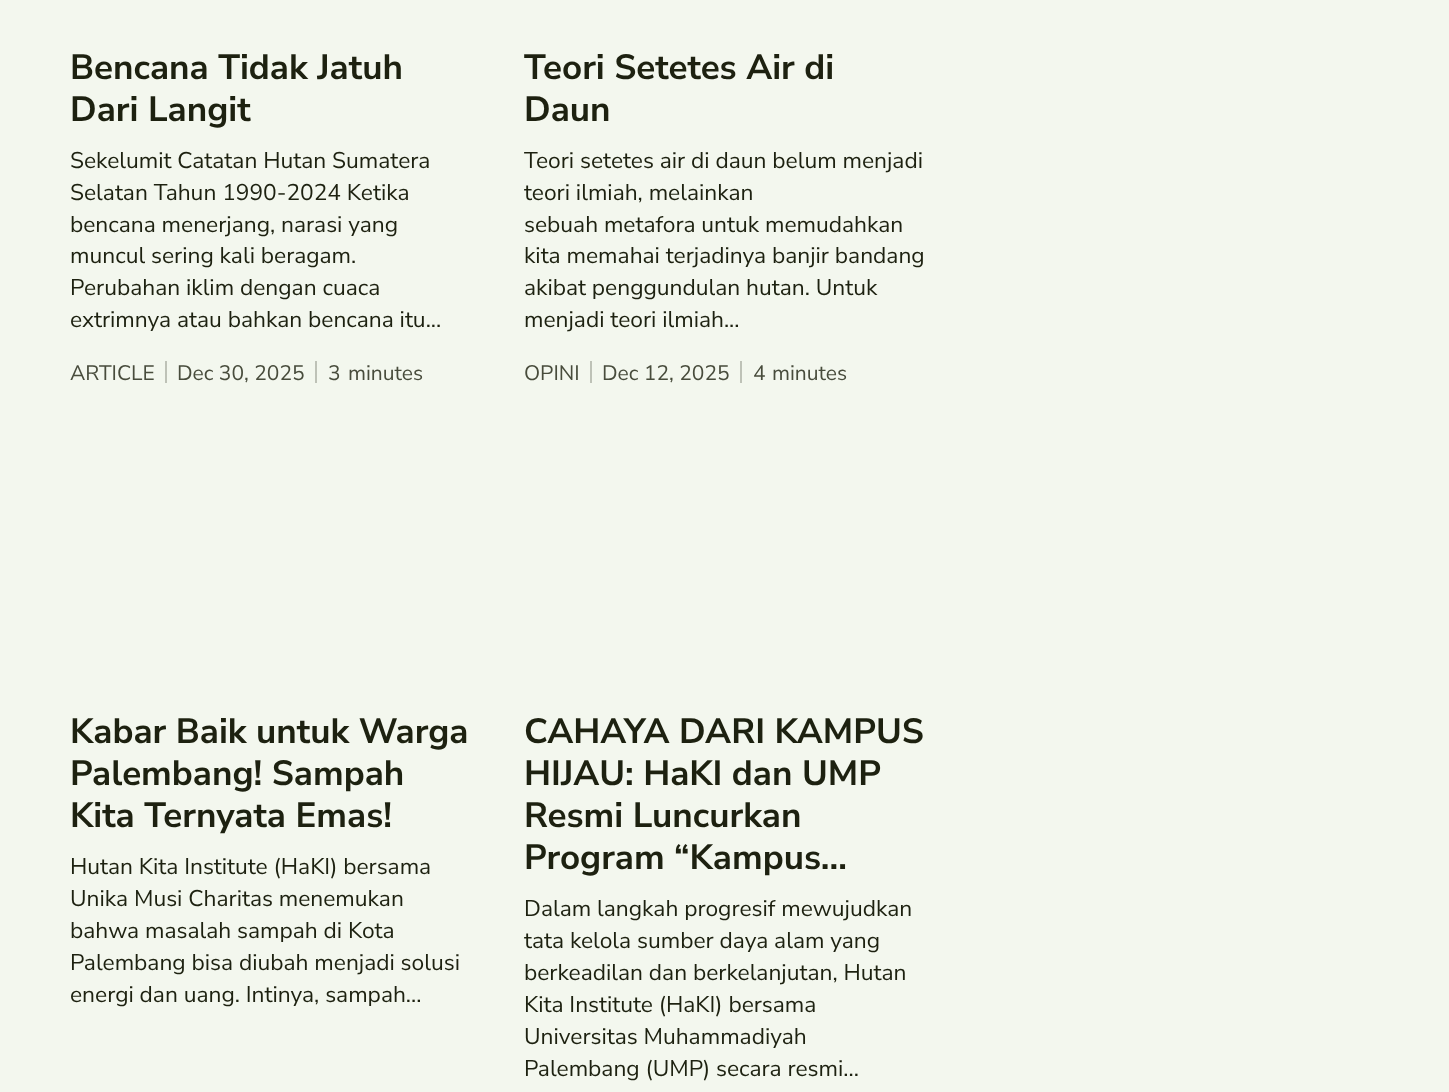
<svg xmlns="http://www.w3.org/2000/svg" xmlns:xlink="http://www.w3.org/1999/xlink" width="1449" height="1092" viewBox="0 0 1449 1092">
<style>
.cls-1{font:bold 35px Nunito Sans;fill:#1d2110}
.cls-2{font:22.75px Nunito Sans;fill:#1d2110}
.cls-3{font:21px Nunito Sans;fill:#484c3c}
</style>
<rect width="100%" height="100%" fill="#f3f7ee"/>
<rect fill="#bec2b7" x="165" y="361" width="2" height="22"/>
<rect fill="#bec2b7" x="315" y="361" width="2" height="22"/>
<rect fill="#bec2b7" x="590" y="361" width="2" height="22"/>
<rect fill="#bec2b7" x="740" y="361" width="2" height="22"/>
<text class="cls-1"><tspan x="70" y="79">Bencana Tidak Jatuh</tspan><tspan x="70" y="121">Dari Langit</tspan></text>
<text class="cls-2"><tspan x="70" y="168">Sekelumit Catatan Hutan Sumatera</tspan><tspan x="70" y="200">Selatan Tahun 1990-2024 Ketika</tspan><tspan x="70" y="232">bencana menerjang, narasi yang</tspan><tspan x="70" y="263">muncul sering kali beragam.</tspan><tspan x="70" y="295">Perubahan iklim dengan cuaca</tspan><tspan x="70" y="327">extrimnya atau bahkan bencana itu...</tspan></text>
<text class="cls-3" x="70" y="380">ARTICLE</text>
<text class="cls-3" x="177" y="380">Dec 30, 2025</text>
<text class="cls-3" x="328" y="380">3</text>
<text class="cls-3" x="348" y="380">minutes</text>
<text class="cls-1"><tspan x="524" y="79">Teori Setetes Air di</tspan><tspan x="524" y="121">Daun</tspan></text>
<text class="cls-2"><tspan x="524" y="168">Teori setetes air di daun belum menjadi</tspan><tspan x="524" y="200">teori ilmiah, melainkan</tspan><tspan x="524" y="232">sebuah metafora untuk memudahkan</tspan><tspan x="524" y="263">kita memahai terjadinya banjir bandang</tspan><tspan x="524" y="295">akibat penggundulan hutan. Untuk</tspan><tspan x="524" y="327">menjadi teori ilmiah...</tspan></text>
<text class="cls-3" x="524" y="380">OPINI</text>
<text class="cls-3" x="602" y="380">Dec 12, 2025</text>
<text class="cls-3" x="753" y="380">4</text>
<text class="cls-3" x="772" y="380">minutes</text>
<text class="cls-1"><tspan x="70" y="743">Kabar Baik untuk Warga</tspan><tspan x="70" y="785">Palembang! Sampah</tspan><tspan x="70" y="827">Kita Ternyata Emas!</tspan></text>
<text class="cls-2"><tspan x="70" y="874">Hutan Kita Institute (HaKI) bersama</tspan><tspan x="70" y="906">Unika Musi Charitas menemukan</tspan><tspan x="70" y="938">bahwa masalah sampah di Kota</tspan><tspan x="70" y="970">Palembang bisa diubah menjadi solusi</tspan><tspan x="70" y="1002">energi dan uang. Intinya, sampah...</tspan></text>
<text class="cls-1"><tspan x="524" y="743">CAHAYA DARI KAMPUS</tspan><tspan x="524" y="785">HIJAU: HaKI dan UMP</tspan><tspan x="524" y="827">Resmi Luncurkan</tspan><tspan x="524" y="869">Program “Kampus...</tspan></text>
<text class="cls-2"><tspan x="524" y="916">Dalam langkah progresif mewujudkan</tspan><tspan x="524" y="948">tata kelola sumber daya alam yang</tspan><tspan x="524" y="980">berkeadilan dan berkelanjutan, Hutan</tspan><tspan x="524" y="1012">Kita Institute (HaKI) bersama</tspan><tspan x="524" y="1044">Universitas Muhammadiyah</tspan><tspan x="524" y="1076">Palembang (UMP) secara resmi...</tspan></text>
</svg>
